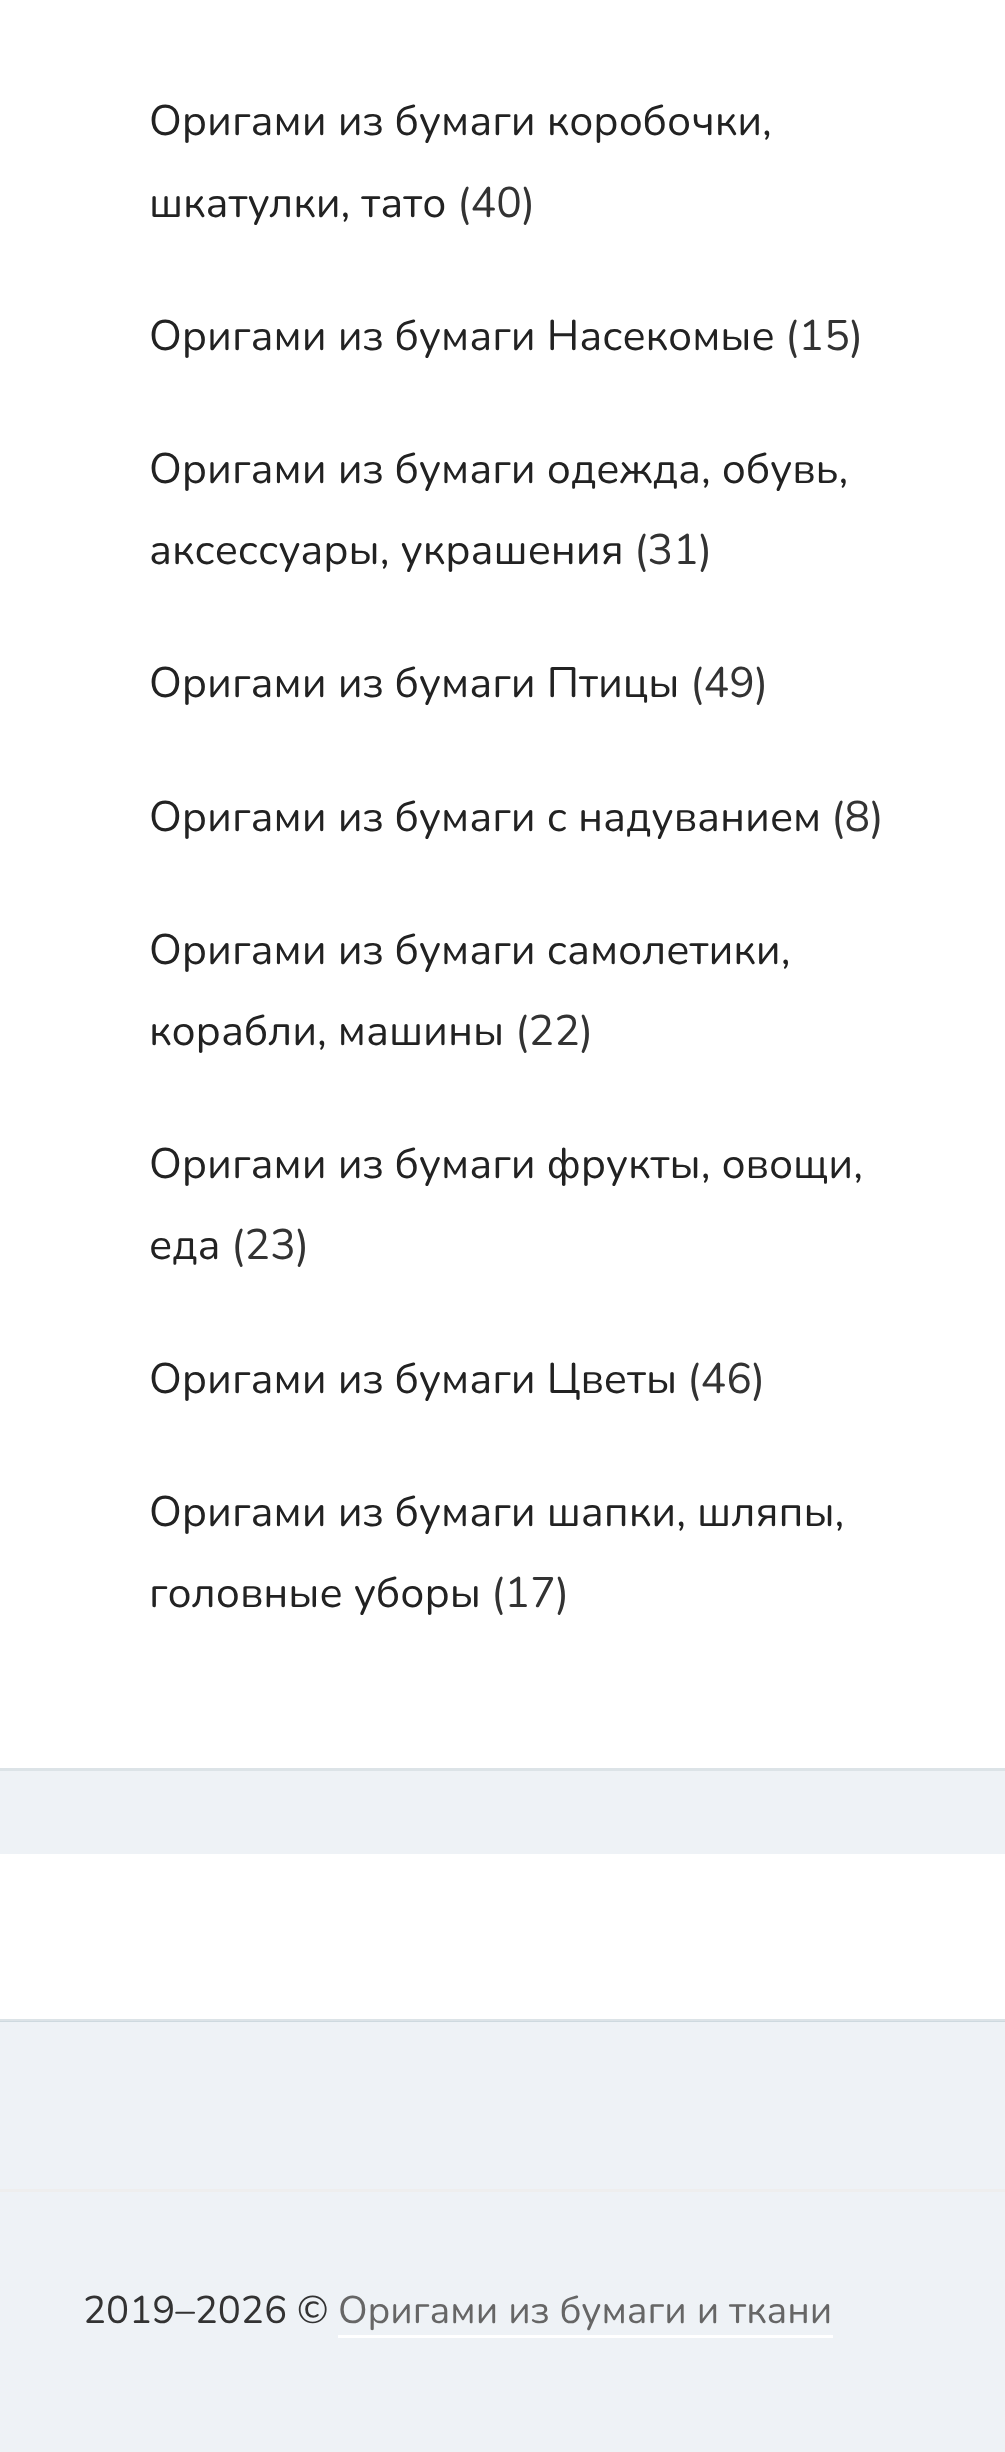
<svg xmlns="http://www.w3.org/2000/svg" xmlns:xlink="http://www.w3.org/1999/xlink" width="1005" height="2452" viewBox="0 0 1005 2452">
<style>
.cls-1{font:42.7px Nunito;fill:#222222}
.cls-2{font:42.7px Nunito;fill:#333333}
.cls-3{font:38.5px Nunito;fill:#333333}
.cls-4{font:38.5px Nunito;fill:#666666}
</style>
<rect width="100%" height="100%" fill="#eef2f6"/>
<rect fill="#ced9df" x="0" y="2021" width="1005" height="1"/>
<rect fill="#ffffff" x="0" y="0" width="1005" height="1768"/>
<rect fill="#dce3e7" x="0" y="1768" width="1005" height="3"/>
<rect fill="#ffffff" x="0" y="1854" width="1005" height="165"/>
<rect fill="#dce3e7" x="0" y="2019" width="1005" height="2"/>
<rect fill="#eeeeee" x="0" y="2189" width="1005" height="3"/>
<rect fill="#ffffff" x="338" y="2335" width="495" height="3"/>
<text class="cls-1"><tspan x="149" y="135">Оригами из бумаги коробочки,</tspan><tspan x="149" y="217">шкатулки, тато</tspan></text>
<text class="cls-2" x="457" y="217">(40)</text>
<text class="cls-1" x="149" y="350">Оригами из бумаги Насекомые</text>
<text class="cls-2" x="785" y="350">(15)</text>
<text class="cls-1"><tspan x="149" y="483">Оригами из бумаги одежда, обувь,</tspan><tspan x="149" y="564">аксессуары, украшения</tspan></text>
<text class="cls-2" x="634" y="564">(31)</text>
<text class="cls-1" x="149" y="697">Оригами из бумаги Птицы</text>
<text class="cls-2" x="690" y="697">(49)</text>
<text class="cls-1" x="149" y="831">Оригами из бумаги с надуванием</text>
<text class="cls-2" x="831" y="831">(8)</text>
<text class="cls-1"><tspan x="149" y="964">Оригами из бумаги самолетики,</tspan><tspan x="149" y="1045">корабли, машины</tspan></text>
<text class="cls-2" x="515" y="1045">(22)</text>
<text class="cls-1"><tspan x="149" y="1178">Оригами из бумаги фрукты, овощи,</tspan><tspan x="149" y="1259">еда</tspan></text>
<text class="cls-2" x="231" y="1259">(23)</text>
<text class="cls-1" x="149" y="1393">Оригами из бумаги Цветы</text>
<text class="cls-2" x="687" y="1393">(46)</text>
<text class="cls-1"><tspan x="149" y="1526">Оригами из бумаги шапки, шляпы,</tspan><tspan x="149" y="1607">головные уборы</tspan></text>
<text class="cls-2" x="491" y="1607">(17)</text>
<text class="cls-3" x="83" y="2323">2019–2026 ©</text>
<text class="cls-4" x="338" y="2323">Оригами из бумаги и ткани</text>
</svg>
